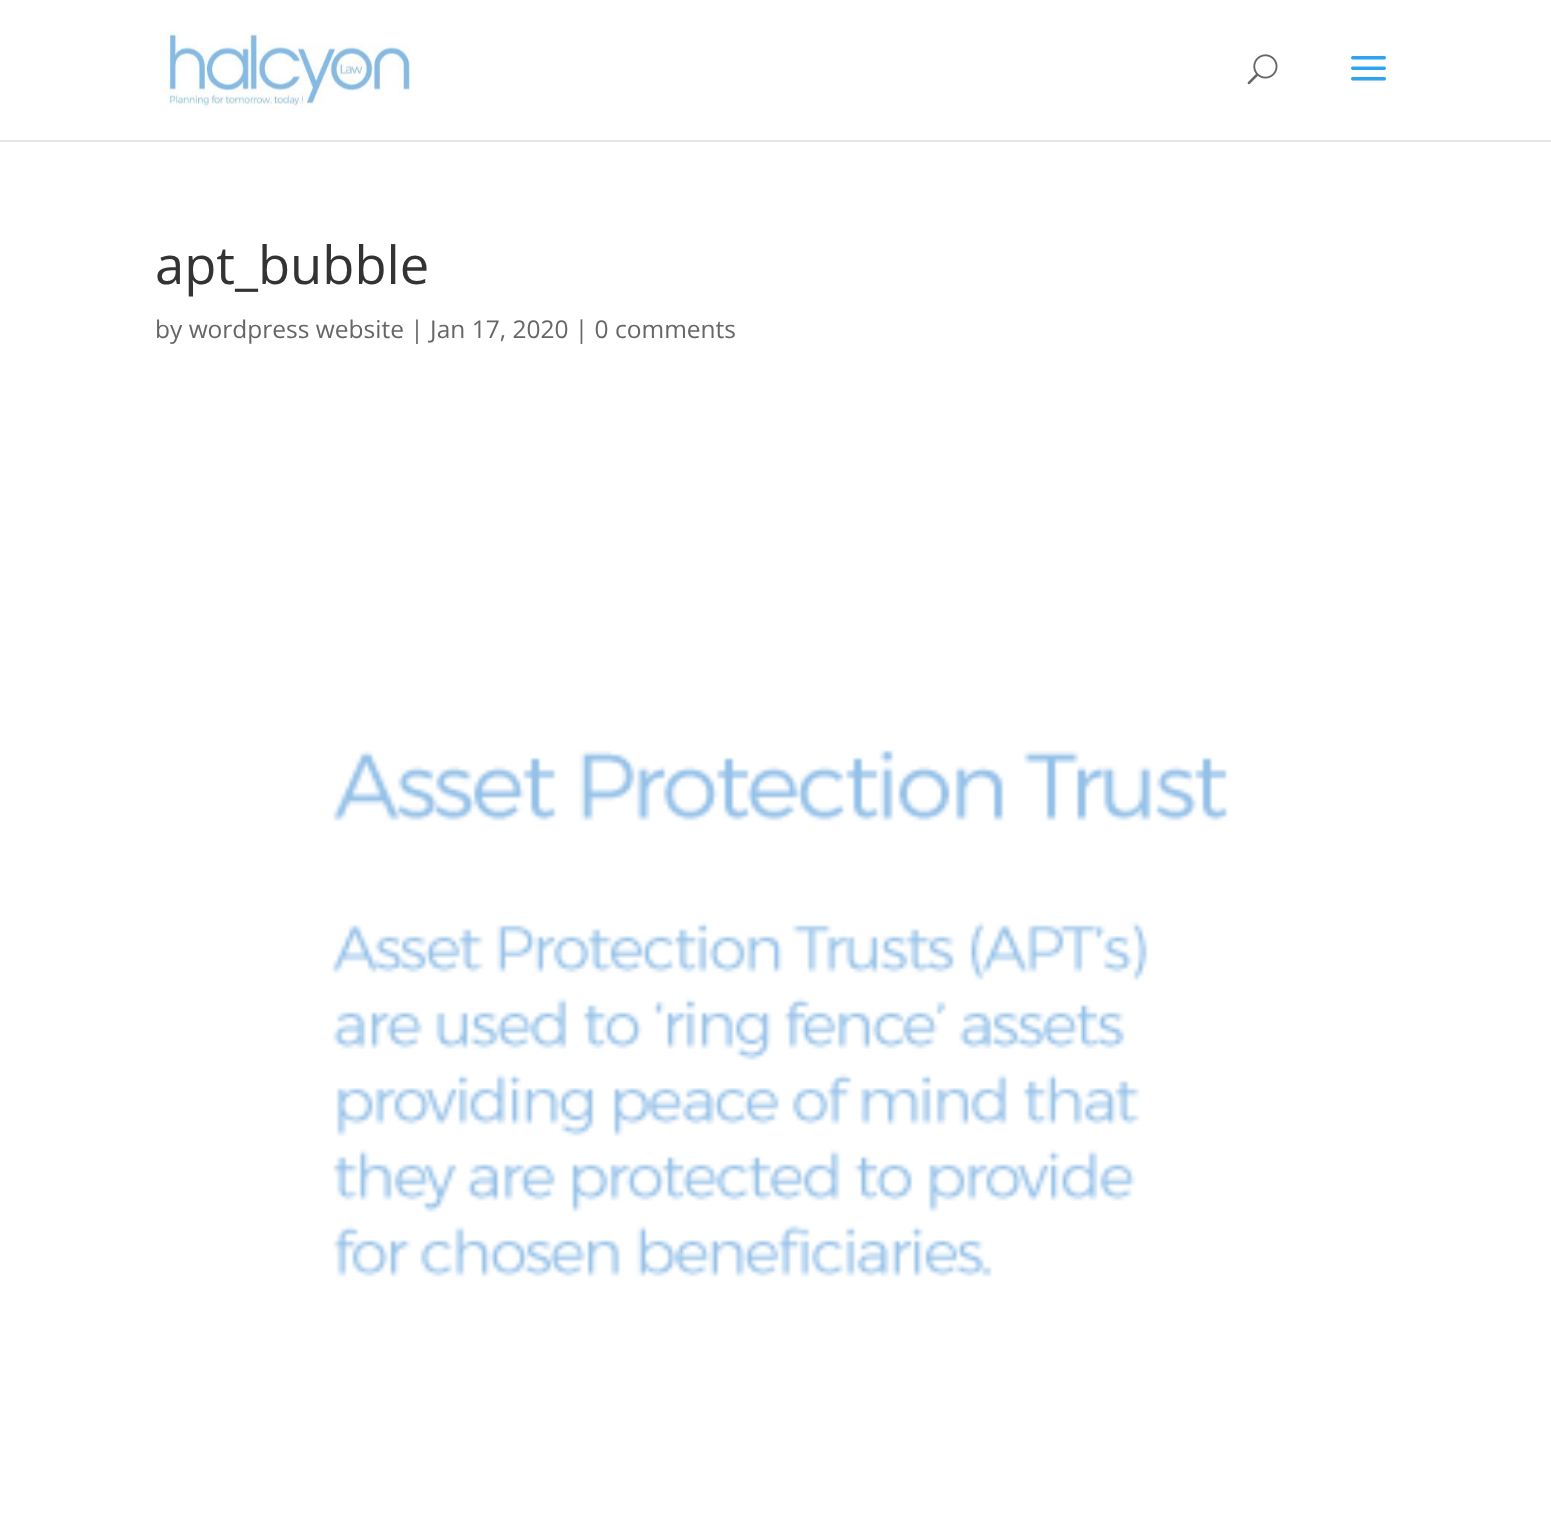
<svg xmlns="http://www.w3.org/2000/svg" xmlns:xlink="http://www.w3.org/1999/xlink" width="1551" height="1523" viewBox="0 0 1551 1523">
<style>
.cls-1{font:52.5px Open Sans;fill:#333333}
.cls-2{font:24.5px Open Sans;fill:#666666}
</style>
<rect width="100%" height="100%" fill="#ffffff"/>
<rect fill="#e6e6e6" x="0" y="140" width="1551" height="2"/>
<image xlink:href="image0.png" x="161" y="31" width="250" height="77"/>
<image xlink:href="image1.png" x="1247" y="54" width="31" height="31"/>
<image xlink:href="image2.png" x="1351" y="56" width="35" height="25"/>
<image xlink:href="image3.png" x="331" y="750" width="898" height="527"/>
<text class="cls-1" x="155" y="284">apt_bubble</text>
<text class="cls-2" x="155" y="338">by wordpress website | Jan 17, 2020 | 0 comments</text>
</svg>
